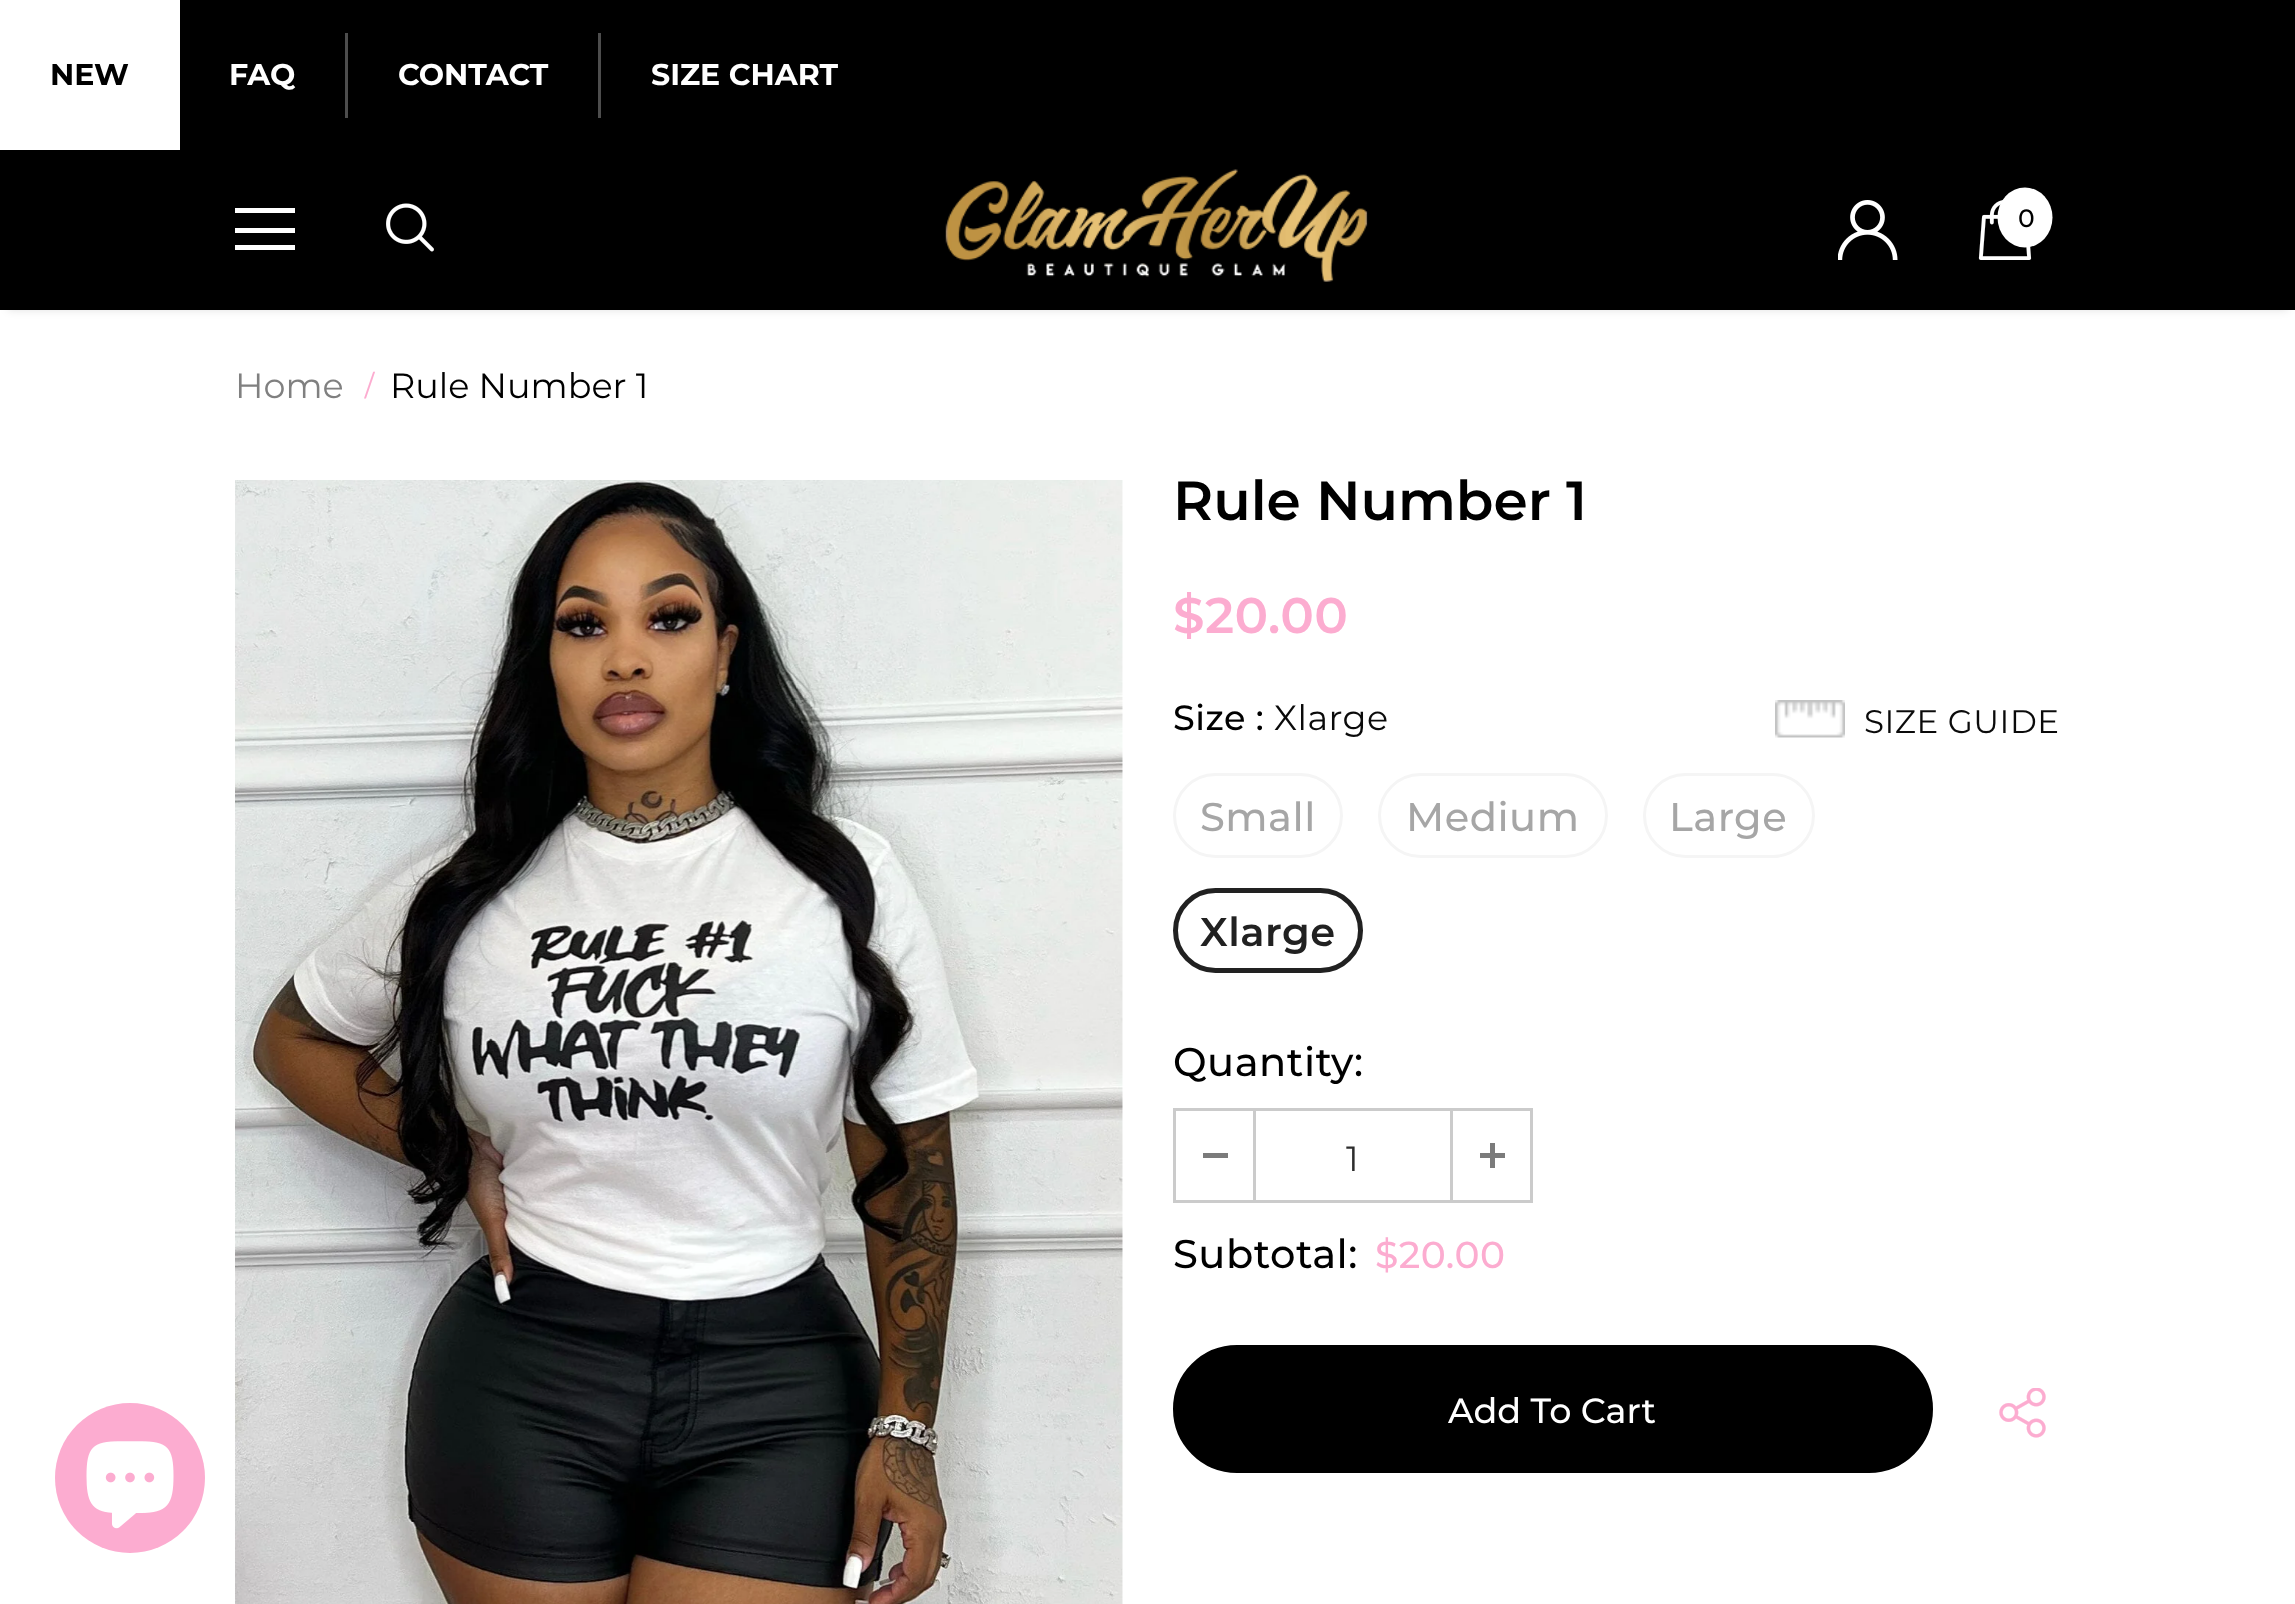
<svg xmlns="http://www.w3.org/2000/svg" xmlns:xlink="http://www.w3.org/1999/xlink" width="2295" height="1604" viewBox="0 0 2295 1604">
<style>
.cls-1{font:bold 30px Montserrat;fill:#000000}
.cls-2{font:bold 30px Montserrat;fill:#ffffff}
.cls-3{font:500 25px Montserrat;fill:#000000}
.cls-4{font:35px Montserrat;fill:#808080}
.cls-5{font:40px Liberation Serif;fill:#fcacd0}
.cls-6{font:35px Montserrat;fill:#000000}
.cls-7{font:600 55px Montserrat;fill:#000000}
.cls-8{font:600 50px Montserrat;letter-spacing:0.5px;fill:#fcacd0}
.cls-9{font:500 35px Montserrat;letter-spacing:0.5px;fill:#000000}
.cls-10{font:35px Montserrat;letter-spacing:0.5px;fill:#0a0a0a}
.cls-11{font:500 40px Montserrat;letter-spacing:0.5px;fill:#a6a6a6}
.cls-12{font:600 40px Montserrat;letter-spacing:0.5px;fill:#212121}
.cls-13{font:32.5px Montserrat;letter-spacing:0.5px;fill:#0a0a0a}
.cls-14{font:500 40px Montserrat;letter-spacing:0.5px;fill:#000000}
.cls-15{font:35px Montserrat;fill:#2d2d2d}
.cls-16{font:500 37.5px Montserrat;letter-spacing:0.5px;fill:#fcacd0}
.cls-17{font:500 35px Montserrat;fill:#ffffff}
</style>
<rect width="100%" height="100%" fill="#ffffff"/>
<rect fill="#000000" x="180" y="0" width="2115" height="150"/>
<rect fill="#4d4d4d" x="345" y="33" width="3" height="85"/>
<rect fill="#4d4d4d" x="598" y="33" width="3" height="85"/>
<rect fill="#000000" fill-opacity="0.12" filter="blur(4px)" x="8" y="165" width="2280" height="145"/>
<rect fill="#000000" x="0" y="150" width="2295" height="160"/>
<rect fill="#ffffff" x="235" y="208" width="60" height="5"/>
<rect fill="#ffffff" x="235" y="228" width="60" height="5"/>
<rect fill="#ffffff" x="235" y="245" width="60" height="5"/>
<image xlink:href="image0.png" x="386" y="203" width="48" height="49"/>
<image xlink:href="image1.png" x="945" y="169" width="423" height="113"/>
<image xlink:href="image2.png" x="1838" y="200" width="60" height="60"/>
<image xlink:href="image3.png" x="1978" y="200" width="54" height="60"/>
<ellipse fill="#ffffff" cx="2025" cy="217.5" rx="27.5" ry="30"/>
<image xlink:href="image4.png" x="235" y="480" width="888" height="1124"/>
<rect fill="none" stroke="#f5f5f5" stroke-width="3" x="1174.5" y="774.5" width="167" height="82" rx="41"/>
<rect fill="none" stroke="#f5f5f5" stroke-width="3" x="1379.5" y="774.5" width="227" height="82" rx="41"/>
<rect fill="none" stroke="#f5f5f5" stroke-width="3" x="1644.5" y="774.5" width="169" height="82" rx="41"/>
<rect fill="none" stroke="#e7e7e7" stroke-width="3" x="1174.5" y="889.5" width="187" height="82" rx="41"/>
<rect fill="none" stroke="#212121" stroke-width="5" x="1175.5" y="890.5" width="185" height="80" rx="40"/>
<image xlink:href="image5.png" x="1775" y="700" width="70" height="38"/>
<rect fill="none" stroke="#cbcbcb" stroke-width="3" x="1174.5" y="1109.5" width="357" height="92"/>
<rect fill="#cbcbcb" x="1253" y="1110" width="3" height="90"/>
<rect fill="#7b7b7b" x="1203" y="1153" width="25" height="5"/>
<rect fill="#cbcbcb" x="1450" y="1110" width="3" height="90"/>
<rect fill="#7b7b7b" x="1480" y="1153" width="25" height="5"/>
<rect fill="#7b7b7b" x="1490" y="1143" width="5" height="25"/>
<rect fill="#000000" stroke="#000000" stroke-width="3" x="1174.5" y="1346.5" width="757" height="125" rx="62.5"/>
<image xlink:href="image6.png" x="1999" y="1388" width="47" height="50"/>
<circle fill="#fcacd0" cx="130" cy="1478" r="75"/>
<image xlink:href="image7.png" x="86" y="1441" width="88" height="88"/>
<text class="cls-1" x="50" y="85">NEW</text>
<text class="cls-2" x="229" y="85">FAQ</text>
<text class="cls-2" x="398" y="85">CONTACT</text>
<text class="cls-2" x="651" y="85">SIZE CHART</text>
<text class="cls-3" x="2018" y="227">0</text>
<text class="cls-4" x="235" y="398">Home</text>
<text class="cls-5" x="364" y="398">/</text>
<text class="cls-6" x="390" y="398">Rule Number 1</text>
<text class="cls-7" x="1173" y="520">Rule Number 1</text>
<text class="cls-8" x="1173" y="633">$20.00</text>
<text class="cls-9" x="1173" y="730">Size :</text>
<text class="cls-10" x="1274" y="730">Xlarge</text>
<text class="cls-11" x="1200" y="831">Small</text>
<text class="cls-11" x="1406" y="831">Medium</text>
<text class="cls-11" x="1669" y="831">Large</text>
<text class="cls-12" x="1200" y="946">Xlarge</text>
<text class="cls-13" x="1864" y="733">SIZE GUIDE</text>
<text class="cls-14" x="1173" y="1076">Quantity:</text>
<text class="cls-15" x="1346" y="1171">1</text>
<text class="cls-14" x="1173" y="1268">Subtotal:</text>
<text class="cls-16" x="1375" y="1268">$20.00</text>
<text class="cls-17" x="1448" y="1423">Add To Cart</text>
</svg>
